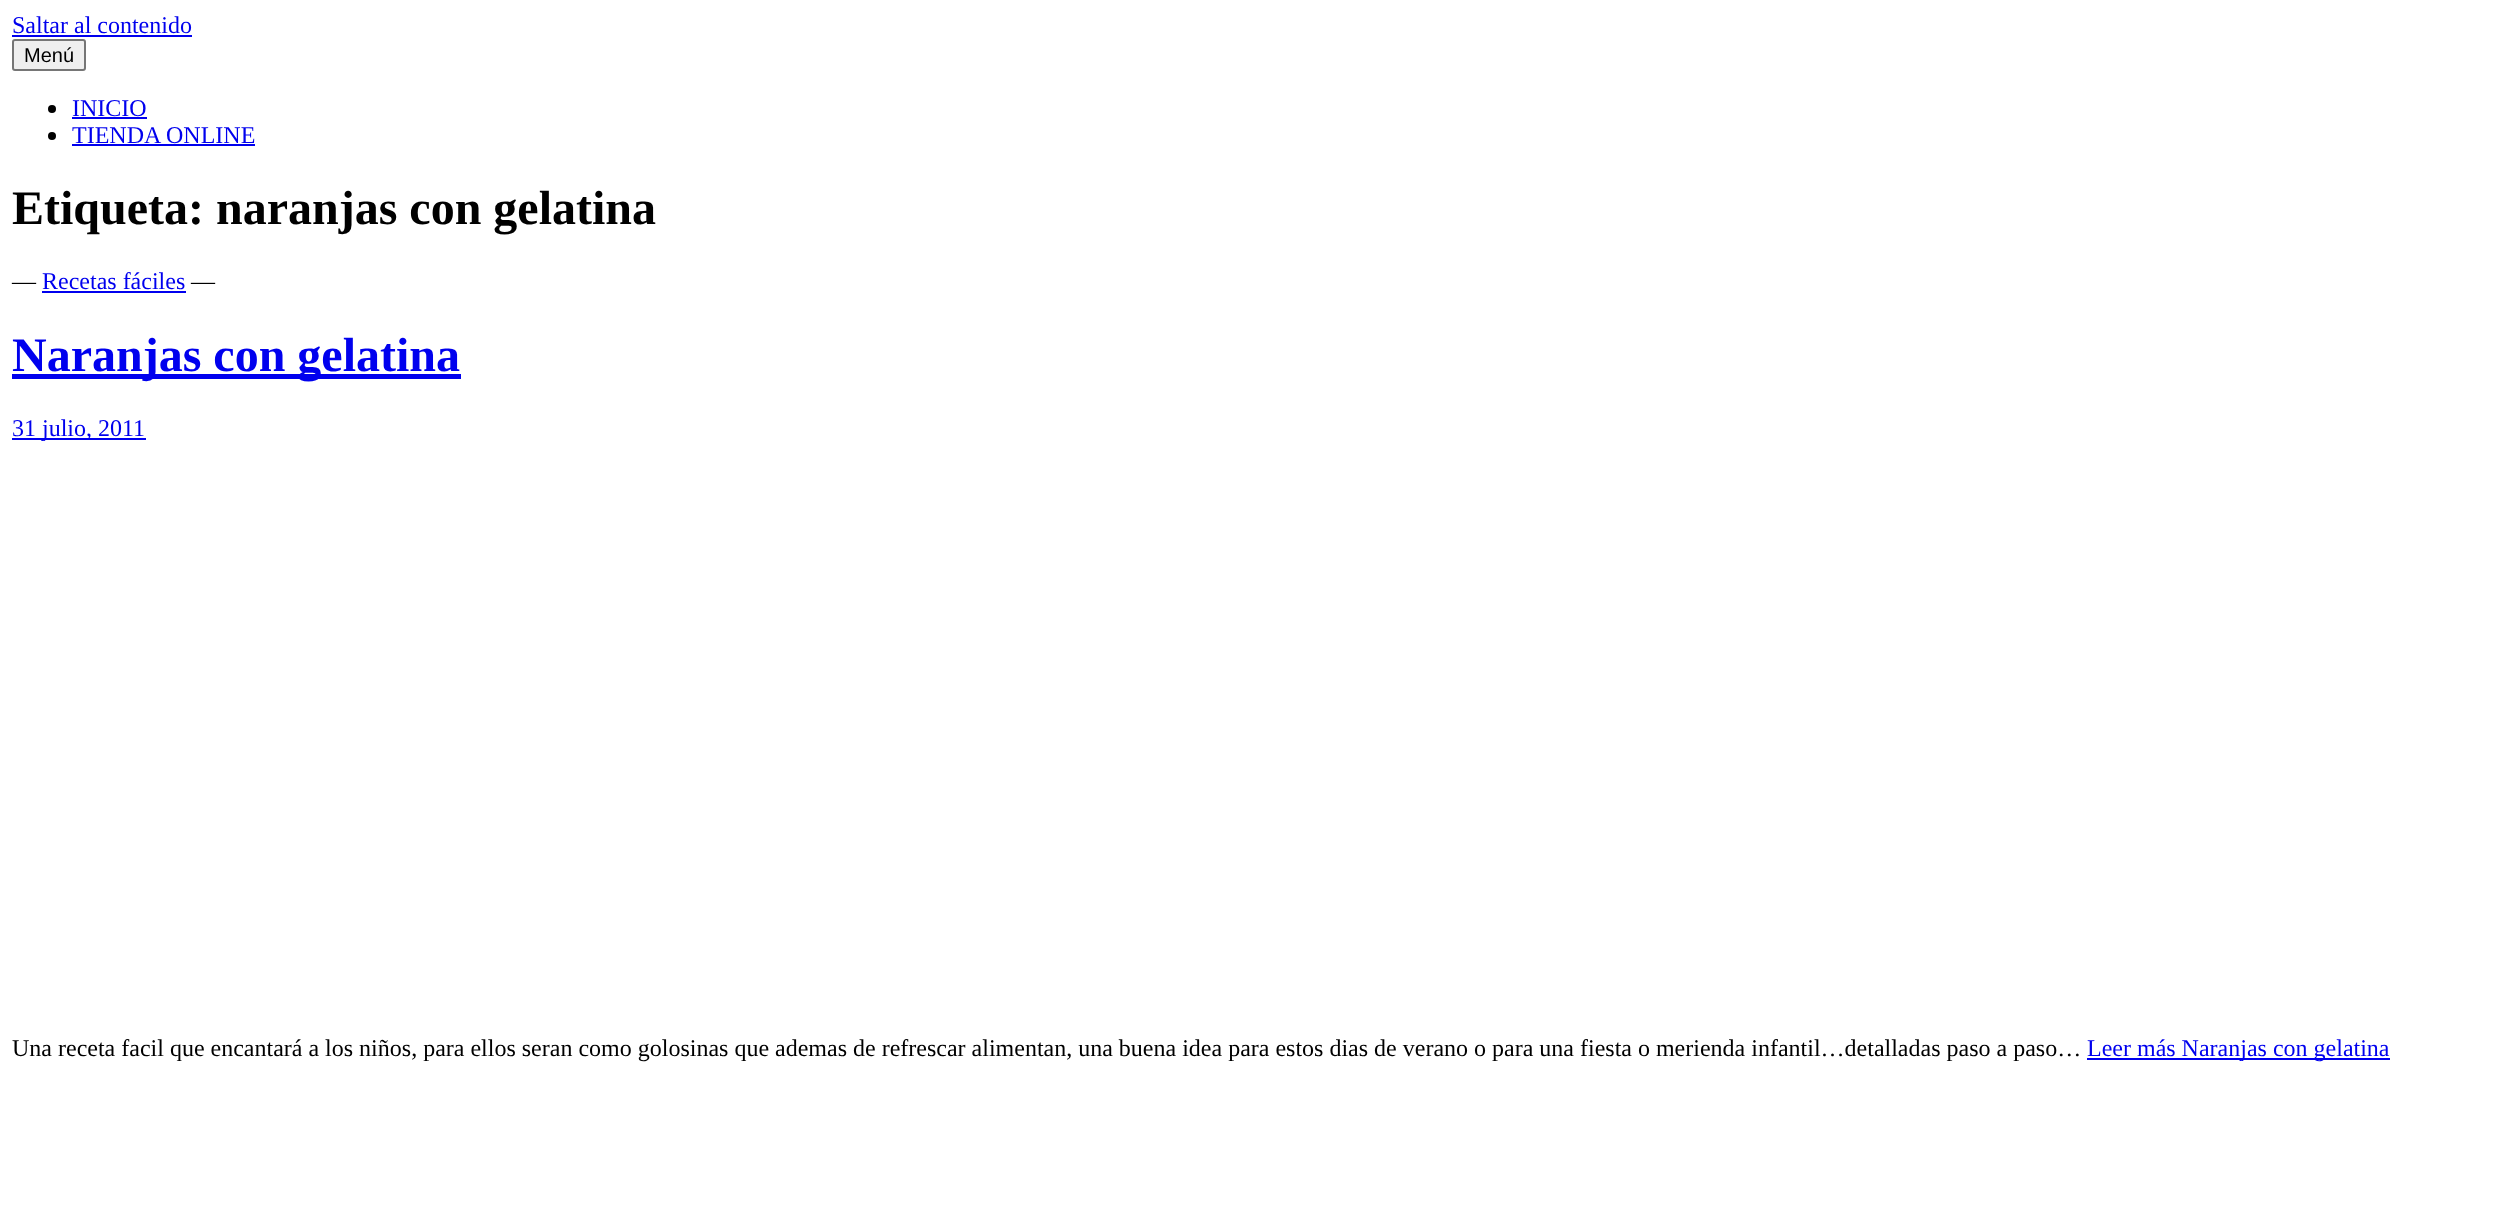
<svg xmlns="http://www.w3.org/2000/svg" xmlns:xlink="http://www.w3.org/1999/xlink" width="2506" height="1227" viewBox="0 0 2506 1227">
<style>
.cls-1{font:24px Liberation Serif;fill:#0000ee}
.cls-2{font:20px Liberation Sans;fill:#000000}
.cls-3{font:bold 48px Liberation Serif;fill:#000000}
.cls-4{font:24px Liberation Serif;fill:#000000}
.cls-5{font:bold 48px Liberation Serif;fill:#0000ee}
</style>
<rect width="100%" height="100%" fill="#ffffff"/>
<rect fill="#0000ee" x="12" y="35" width="180" height="2"/>
<rect fill="#efefef" stroke="#767676" stroke-width="2" x="13" y="40" width="72" height="30" rx="2"/>
<circle fill="#000000" cx="52" cy="109" r="4"/>
<rect fill="#0000ee" x="72" y="117" width="75" height="2"/>
<circle fill="#000000" cx="52" cy="136" r="4"/>
<rect fill="#0000ee" x="72" y="144" width="183" height="2"/>
<rect fill="#0000ee" x="42" y="291" width="144" height="2"/>
<rect fill="#0000ee" x="12" y="374" width="449" height="5"/>
<rect fill="#0000ee" x="12" y="438" width="134" height="2"/>
<rect fill="#0000ee" x="2087" y="1058" width="303" height="2"/>
<text class="cls-1" x="12" y="33">Saltar al contenido</text>
<text class="cls-2" x="24" y="62">Menú</text>
<text class="cls-1"><tspan x="72" y="116">INICIO</tspan><tspan x="72" y="143">TIENDA ONLINE</tspan></text>
<text class="cls-3" x="12" y="224">Etiqueta: naranjas con gelatina</text>
<text class="cls-4" x="12" y="289">—</text>
<text class="cls-1" x="42" y="289">Recetas fáciles</text>
<text class="cls-4" x="191" y="289">—</text>
<text class="cls-5" x="12" y="371">Naranjas con gelatina</text>
<text class="cls-1" x="12" y="436">31 julio, 2011</text>
<text class="cls-4" x="12" y="1056">Una receta facil que encantará a los niños, para ellos seran como golosinas que ademas de refrescar alimentan, una buena idea para estos dias de verano o para una fiesta o merienda infantil…detalladas paso a paso…</text>
<text class="cls-1" x="2087" y="1056">Leer más Naranjas con gelatina</text>
</svg>
